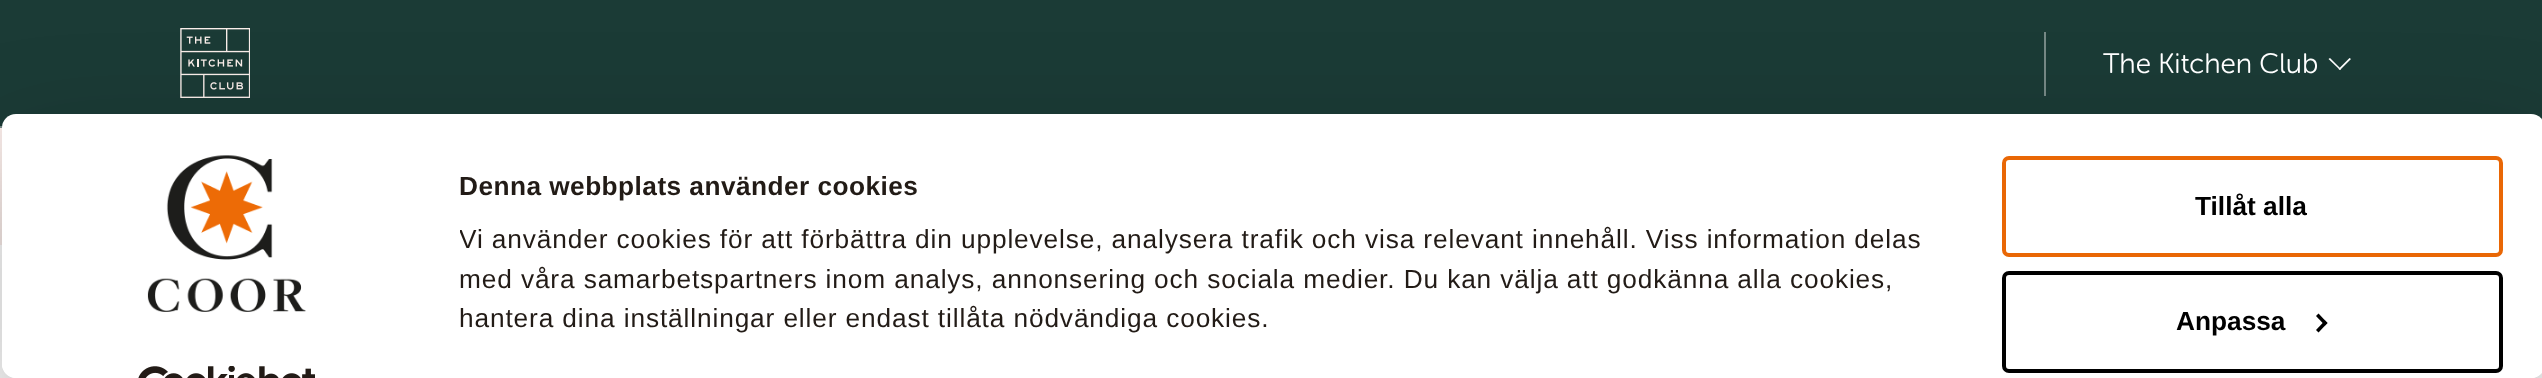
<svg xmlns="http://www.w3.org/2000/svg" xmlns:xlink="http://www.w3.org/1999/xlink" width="2542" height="378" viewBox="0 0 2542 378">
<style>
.cls-1{font:300 28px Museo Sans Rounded;fill:#ffffff}
.cls-2{font:bold 26.25px Liberation Sans;letter-spacing:0.45px;fill:#221b16}
.cls-3{font:26.25px Liberation Sans;letter-spacing:0.88px;fill:#221b16}
.cls-4{font:bold 26.25px Liberation Sans;fill:#000000}
</style>
<defs>
<clipPath id="clip1"><path d="M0 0H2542V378H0ZM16 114H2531C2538.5 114 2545 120.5 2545 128V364C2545 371.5 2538.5 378 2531 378H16C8.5 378 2 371.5 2 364V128C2 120.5 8.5 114 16 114Z" clip-rule="evenodd"/></clipPath>
<clipPath id="clip2"><rect x="460" y="166" width="1532" height="174"/></clipPath>
</defs>
<rect width="100%" height="100%" fill="#ffffff"/>
<rect fill="#faedea" x="0" y="128" width="2" height="117"/>
<rect fill="#1b3b36" x="0" y="0" width="2542" height="126"/>
<rect fill="#768986" x="0" y="126" width="3" height="2"/>
<image xlink:href="image0.png" x="180" y="28" width="70" height="70"/>
<rect fill="#768986" x="2044" y="32" width="2" height="64"/>
<path fill="#ffffff" d="M2351 59L2340 70L2338.5 69L2349.5 58Z"/>
<path fill="#ffffff" d="M2341 69L2340 70L2328.5 59L2330 58Z"/>
<g clip-path="url(#clip1)">
<rect fill="#000000" fill-opacity="0.3" filter="blur(61px)" x="2" y="166" width="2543" height="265" rx="14"/>
</g>
<rect fill="#ffffff" x="2" y="114" width="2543" height="264" rx="14"/>
<image xlink:href="image1.png" x="147" y="155" width="159" height="157"/>
<image xlink:href="image2.png" x="138" y="366" width="177" height="12"/>
<rect fill="none" stroke="#e96705" stroke-width="4" x="2004" y="158" width="497" height="97" rx="5"/>
<rect fill="none" stroke="#000000" stroke-width="4" x="2004" y="273" width="497" height="98" rx="5"/>
<path fill="#000000" d="M2318.5 313.5L2327.5 323L2325 325.5L2316 316Z"/>
<path fill="#000000" d="M2325 320.5L2327.5 323L2318.5 332.5L2316 330Z"/>
<text class="cls-1" x="2103" y="73">The Kitchen Club</text>
<text class="cls-2" x="459" y="195">Denna webbplats använder cookies</text>
<g clip-path="url(#clip2)">
<text class="cls-3" x="459" y="248">Vi använder cookies för att förbättra din upplevelse, analysera trafik och visa relevant innehåll. Viss information delas</text>
</g>
<text class="cls-3"><tspan x="459" y="288">med våra samarbetspartners inom analys, annonsering och sociala medier. Du kan välja att godkänna alla cookies,</tspan><tspan x="459" y="327">hantera dina inställningar eller endast tillåta nödvändiga cookies.</tspan></text>
<text class="cls-4" x="2195" y="215">Tillåt alla</text>
<text class="cls-4" x="2176" y="330">Anpassa</text>
</svg>
